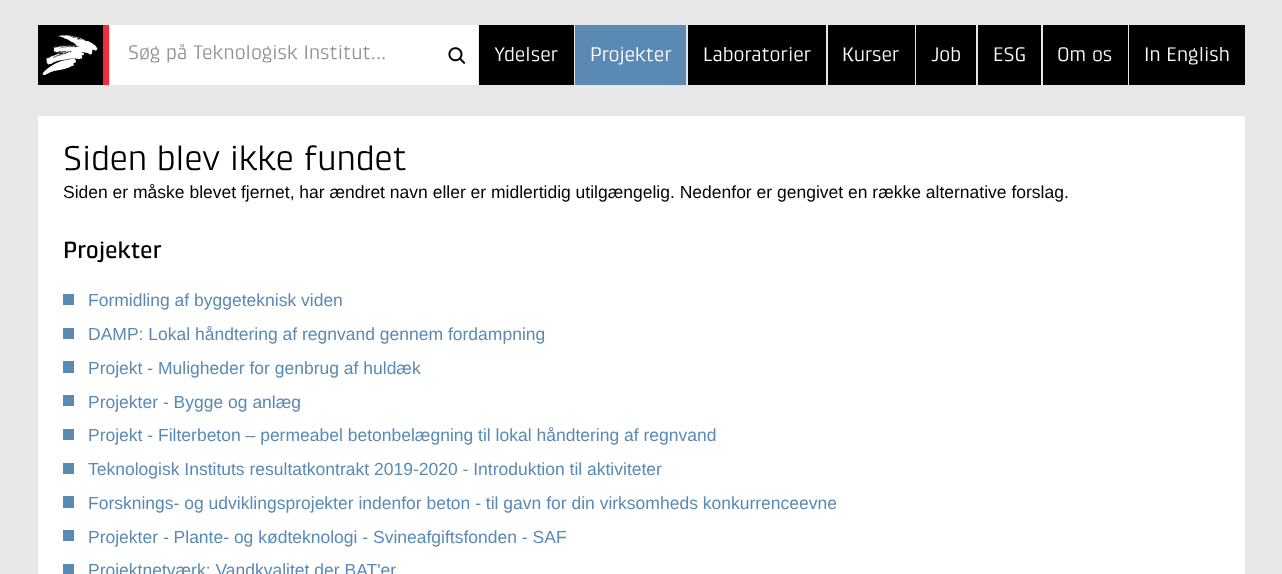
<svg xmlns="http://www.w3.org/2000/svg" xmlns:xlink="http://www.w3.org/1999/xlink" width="1282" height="574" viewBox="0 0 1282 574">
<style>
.cls-1{font:20px 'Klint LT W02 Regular';fill:#909090}
.cls-2{font:20px 'Klint LT W02 Regular';fill:#ffffff}
.cls-3{font:35px 'Klint LT W02 Regular';letter-spacing:-0.35px;fill:#000000}
.cls-4{font:17.5px Liberation Sans;fill:#000000}
.cls-5{font:500 23.75px 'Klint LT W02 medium';fill:#000000}
.cls-6{font:17.5px Liberation Sans;fill:#5a8ab4}
</style>
<defs>
<clipPath id="clip1"><rect x="128" y="44" width="303" height="24"/></clipPath>
</defs>
<rect width="100%" height="100%" fill="#e7e7e7"/>
<rect fill="#000000" x="38" y="25" width="65" height="60"/>
<image xlink:href="image0.png" x="42" y="35" width="56" height="41"/>
<rect fill="#f12b3b" x="103" y="25" width="6" height="60"/>
<rect fill="#ffffff" x="110" y="25" width="368" height="60"/>
<image xlink:href="image1.png" x="448" y="47" width="18" height="17"/>
<rect fill="#000000" x="479" y="25" width="95" height="60"/>
<rect fill="#5a8ab4" x="575" y="25" width="111" height="60"/>
<rect fill="#000000" x="688" y="25" width="138" height="60"/>
<rect fill="#000000" x="828" y="25" width="87" height="60"/>
<rect fill="#000000" x="916" y="25" width="60" height="60"/>
<rect fill="#000000" x="978" y="25" width="63" height="60"/>
<rect fill="#000000" x="1043" y="25" width="85" height="60"/>
<rect fill="#000000" x="1129" y="25" width="116" height="60"/>
<rect fill="#ffffff" x="38" y="116" width="1207" height="458"/>
<rect fill="#5a8ab4" x="63" y="294" width="11" height="11"/>
<rect fill="#5a8ab4" x="63" y="328" width="11" height="11"/>
<rect fill="#5a8ab4" x="63" y="361" width="11" height="12"/>
<rect fill="#5a8ab4" x="63" y="395" width="11" height="11"/>
<rect fill="#5a8ab4" x="63" y="429" width="11" height="11"/>
<rect fill="#5a8ab4" x="63" y="463" width="11" height="11"/>
<rect fill="#5a8ab4" x="63" y="496" width="11" height="12"/>
<rect fill="#5a8ab4" x="63" y="530" width="11" height="11"/>
<rect fill="#5a8ab4" x="63" y="564" width="11" height="10"/>
<g clip-path="url(#clip1)">
<text class="cls-1" x="128" y="59">Søg på Teknologisk Institut...</text>
</g>
<text class="cls-2" x="494" y="61">Ydelser</text>
<text class="cls-2" x="590" y="61">Projekter</text>
<text class="cls-2" x="703" y="61">Laboratorier</text>
<text class="cls-2" x="842" y="61">Kurser</text>
<text class="cls-2" x="931" y="61">Job</text>
<text class="cls-2" x="993" y="61">ESG</text>
<text class="cls-2" x="1057" y="61">Om os</text>
<text class="cls-2" x="1144" y="61">In English</text>
<text class="cls-3" x="63" y="170">Siden blev ikke fundet</text>
<text class="cls-4" x="63" y="198">Siden er måske blevet fjernet, har ændret navn eller er midlertidig utilgængelig. Nedenfor er gengivet en række alternative forslag.</text>
<text class="cls-5" x="63" y="258">Projekter</text>
<text class="cls-6"><tspan x="88" y="306">Formidling af byggeteknisk viden</tspan><tspan x="88" y="340">DAMP: Lokal håndtering af regnvand gennem fordampning</tspan><tspan x="88" y="374">Projekt - Muligheder for genbrug af huldæk</tspan><tspan x="88" y="408">Projekter - Bygge og anlæg</tspan><tspan x="88" y="441">Projekt - Filterbeton – permeabel betonbelægning til lokal håndtering af regnvand</tspan><tspan x="88" y="475">Teknologisk Instituts resultatkontrakt 2019-2020 - Introduktion til aktiviteter</tspan><tspan x="88" y="509">Forsknings- og udviklingsprojekter indenfor beton - til gavn for din virksomheds konkurrenceevne</tspan><tspan x="88" y="543">Projekter - Plante- og kødteknologi - Svineafgiftsfonden - SAF</tspan><tspan x="88" y="576">Projektnetværk: Vandkvalitet der BAT'er</tspan></text>
</svg>
